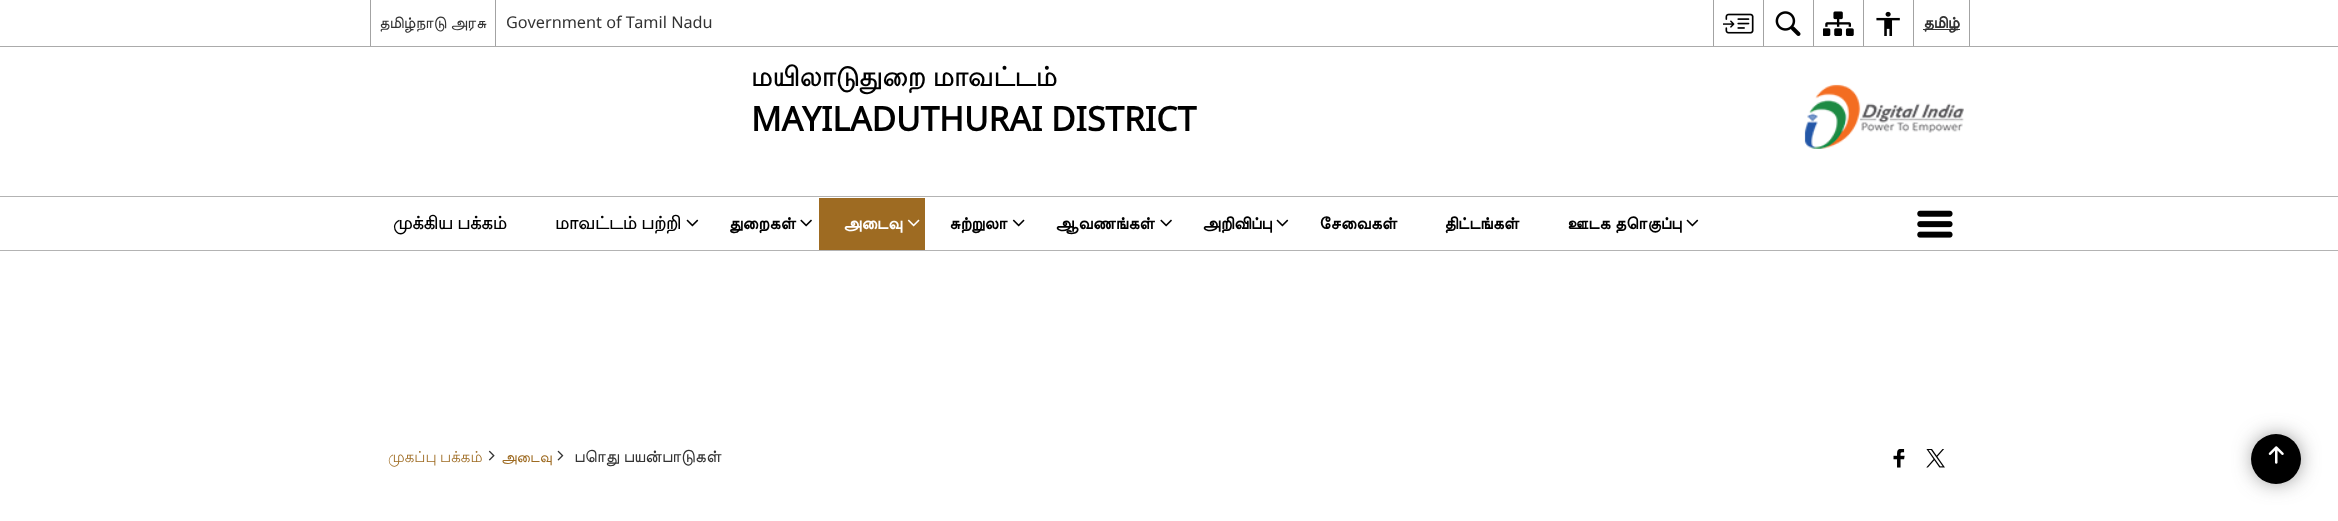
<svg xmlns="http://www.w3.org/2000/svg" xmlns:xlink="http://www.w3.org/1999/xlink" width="2338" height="521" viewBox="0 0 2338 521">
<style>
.cls-1{font:16.25px FreeSans;fill:#333333}
.cls-2{font:16.25px Noto Sans;fill:#333333}
.cls-3{font:bold 16.25px FreeSans;fill:#333333}
.cls-4{font:bold 26.6px Lohit Tamil;fill:#000000}
.cls-5{font:bold 33.6px Noto Sans;fill:#000000}
.cls-6{font:bold 17.5px Lohit Tamil;fill:#000000}
.cls-7{font:bold 17.5px FreeSans;fill:#000000}
.cls-8{font:bold 17.5px FreeSans;fill:#ffffff}
.cls-9{font:15px Lohit Tamil;fill:#9e6b22}
.cls-10{font:15px FreeSans;fill:#9e6b22}
.cls-11{font:17.5px FreeSans;fill:#333333}
</style>
<rect width="100%" height="100%" fill="#ffffff"/>
<rect fill="#ababab" x="0" y="46" width="2338" height="1"/>
<rect fill="#a3a3a3" x="370" y="0" width="1" height="46"/>
<rect fill="#a3a3a3" x="495" y="0" width="1" height="46"/>
<rect fill="#a3a3a3" x="1713" y="0" width="1" height="46"/>
<image xlink:href="image0.png" x="1723" y="13" width="31" height="21"/>
<rect fill="#a3a3a3" x="1763" y="0" width="1" height="46"/>
<image xlink:href="image1.png" x="1775" y="11" width="26" height="25"/>
<rect fill="#a3a3a3" x="1813" y="0" width="1" height="46"/>
<image xlink:href="image2.png" x="1823" y="11" width="31" height="25"/>
<rect fill="#a3a3a3" x="1863" y="0" width="1" height="46"/>
<image xlink:href="image3.png" x="1876" y="11" width="24" height="25"/>
<rect fill="#a3a3a3" x="1969" y="0" width="1" height="46"/>
<rect fill="#a3a3a3" x="1913" y="0" width="1" height="46"/>
<rect fill="#333333" x="1923" y="29" width="37" height="1"/>
<image xlink:href="image4.png" x="1804" y="84" width="160" height="65"/>
<rect fill="#b3b3b3" x="0" y="196" width="2338" height="1"/>
<rect fill="#b3b3b3" x="0" y="250" width="2338" height="1"/>
<image xlink:href="image5.png" x="686" y="219" width="13" height="8"/>
<image xlink:href="image6.png" x="800" y="219" width="12" height="8"/>
<rect fill="#9e6b22" x="819" y="198" width="106" height="52"/>
<image xlink:href="image7.png" x="907" y="219" width="13" height="8"/>
<image xlink:href="image8.png" x="1012" y="219" width="13" height="8"/>
<image xlink:href="image6.png" x="1160" y="219" width="12" height="8"/>
<image xlink:href="image5.png" x="1276" y="219" width="13" height="8"/>
<image xlink:href="image5.png" x="1686" y="219" width="13" height="8"/>
<image xlink:href="image9.png" x="1917" y="210" width="36" height="28"/>
<image xlink:href="image10.png" x="488" y="450" width="7" height="11"/>
<image xlink:href="image11.png" x="557" y="450" width="7" height="11"/>
<image xlink:href="image12.png" x="1893" y="449" width="12" height="19"/>
<image xlink:href="image13.png" x="1926" y="449" width="19" height="19"/>
<rect fill="#3c3c3c" filter="blur(12px)" x="2258" y="440" width="37" height="38" rx="18.5"/>
<circle fill="#000000" cx="2276" cy="459" r="25"/>
<image xlink:href="image14.png" x="2268" y="446" width="16" height="18"/>
<text class="cls-1" x="379" y="28">தமிழ்நாடு அரசு</text>
<text class="cls-2" x="506" y="28">Government of Tamil Nadu</text>
<text class="cls-3" x="1923" y="28">தமிழ்</text>
<text class="cls-4" x="751" y="86" word-spacing="-1">மயிலாடுதுறை மாவட்டம்</text>
<text class="cls-5" x="751" y="131">MAYILADUTHURAI DISTRICT</text>
<text class="cls-6" x="393" y="229" word-spacing="-1">முக்கிய பக்கம்</text>
<text class="cls-6" x="555" y="229" word-spacing="-1">மாவட்டம் பற்றி</text>
<text class="cls-7" x="729" y="229">துறைகள்</text>
<text class="cls-8" x="843" y="229">அடைவு</text>
<text class="cls-7" x="949" y="229">சுற்றுலா</text>
<text class="cls-7" x="1055" y="229">ஆவணங்கள்</text>
<text class="cls-7" x="1202" y="229">அறிவிப்பு</text>
<text class="cls-7" x="1319" y="229">சேவைகள்</text>
<text class="cls-7" x="1444" y="229">திட்டங்கள்</text>
<text class="cls-7" x="1567" y="229">ஊடக தொகுப்பு</text>
<text class="cls-9" x="388" y="462" word-spacing="-1">முகப்பு பக்கம்</text>
<text class="cls-10" x="501" y="462">அடைவு</text>
<text class="cls-11" x="574" y="462">பொது பயன்பாடுகள்</text>
</svg>
